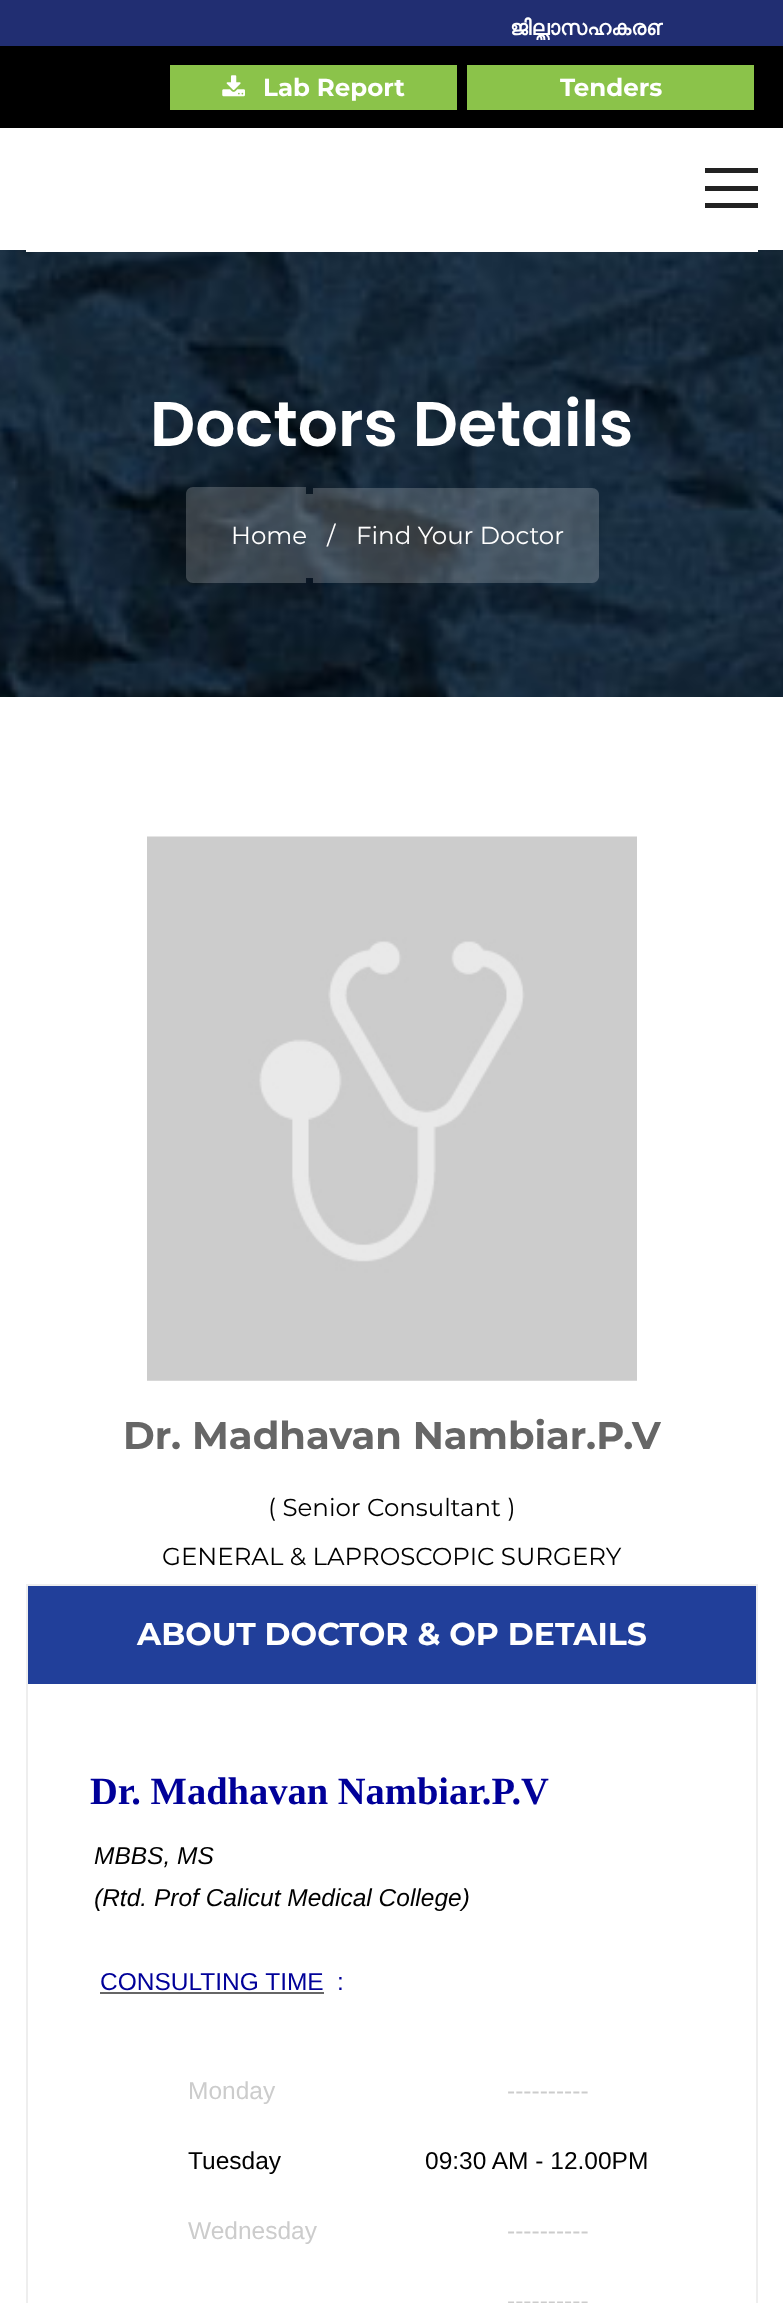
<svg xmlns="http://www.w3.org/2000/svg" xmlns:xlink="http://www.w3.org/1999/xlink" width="783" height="2303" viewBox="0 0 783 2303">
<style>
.cls-1{font:bold 21px FreeSans;fill:#ffffff}
.cls-2{font:bold 24.5px Montserrat;fill:#ffffff}
.cls-3{font:600 63px Poppins;fill:#ffffff}
.cls-4{font:24.5px Montserrat;fill:#ffffff}
.cls-5{font:bold 38.5px Montserrat;fill:#666666}
.cls-6{font:24.5px Montserrat;fill:#000000}
.cls-7{font:bold 31.5px Montserrat;fill:#ffffff}
.cls-8{font:bold 38.5px Liberation Serif;fill:#000099}
.cls-9{font:italic 24.5px Liberation Sans;fill:#000000}
.cls-10{font:24.5px Liberation Sans;fill:#000099}
.cls-11{font:24.5px Liberation Sans;fill:#cccccc}
.cls-12{font:24.5px Liberation Sans;fill:#000000}
</style>
<defs>
<clipPath id="clip1"><rect x="26" y="14" width="637" height="26"/></clipPath>
</defs>
<rect width="100%" height="100%" fill="#ffffff"/>
<rect fill="#212e72" x="0" y="0" width="783" height="46"/>
<rect fill="#000000" x="0" y="46" width="783" height="82"/>
<rect fill="#8bc34a" x="170" y="65" width="287" height="45"/>
<image xlink:href="image0.png" x="222" y="75" width="23" height="22"/>
<rect fill="#8bc34a" x="467" y="65" width="287" height="45"/>
<image xlink:href="image1.png" x="0" y="250" width="783" height="447"/>
<rect fill="#ffffff" x="26" y="250" width="732" height="2"/>
<rect fill="#222222" x="705" y="168" width="53" height="5"/>
<rect fill="#222222" x="705" y="186" width="53" height="5"/>
<rect fill="#222222" x="705" y="203" width="53" height="5"/>
<path fill="#ffffff" fill-opacity="0.2" d="M193 487H306V583H193C189 583 186 580 186 576V494C186 490 189 487 193 487Z"/>
<rect fill="#ffffff" fill-opacity="0.2" x="306" y="494" width="7" height="84"/>
<path fill="#ffffff" fill-opacity="0.2" d="M313 488H592C596 488 599 491 599 495V576C599 580 596 583 592 583H313Z"/>
<image xlink:href="image2.png" x="147" y="836" width="490" height="545"/>
<rect fill="none" stroke="#eeeeee" stroke-width="2" x="27" y="1585" width="730" height="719"/>
<rect fill="#213f9a" x="28" y="1586" width="728" height="98"/>
<rect fill="#666666" x="100" y="1992" width="224" height="2"/>
<g clip-path="url(#clip1)">
<text class="cls-1" x="510" y="35">ജില്ലാസഹകരണ</text>
</g>
<text class="cls-2" x="263" y="96">Lab Report</text>
<text class="cls-2" x="560" y="96">Tenders</text>
<text class="cls-3" x="150" y="446">Doctors Details</text>
<text class="cls-4" x="231" y="544">Home</text>
<text class="cls-4" x="327" y="544">/</text>
<text class="cls-4" x="356" y="544">Find Your Doctor</text>
<text class="cls-5" x="123" y="1449">Dr. Madhavan Nambiar.P.V</text>
<text class="cls-6" x="268" y="1516">( Senior Consultant )</text>
<text class="cls-6" x="162" y="1565">GENERAL &amp; LAPROSCOPIC SURGERY</text>
<text class="cls-7" x="137" y="1645">ABOUT DOCTOR &amp; OP DETAILS</text>
<text class="cls-8" x="90" y="1804">Dr. Madhavan Nambiar.P.V</text>
<text class="cls-9"><tspan x="94" y="1864">MBBS, MS</tspan><tspan x="94" y="1906">(Rtd. Prof Calicut Medical College)</tspan></text>
<text class="cls-10" x="100" y="1990">CONSULTING TIME</text>
<text class="cls-10" x="337" y="1990">:</text>
<text class="cls-11" x="188" y="2099">Monday</text>
<text class="cls-11" x="507" y="2099">----------</text>
<text class="cls-12" x="188" y="2169">Tuesday</text>
<text class="cls-12" x="425" y="2169">09:30 AM - 12.00PM</text>
<text class="cls-11" x="188" y="2239">Wednesday</text>
<text class="cls-11" x="507" y="2239">----------</text>
<text class="cls-11" x="507" y="2309">----------</text>
</svg>
